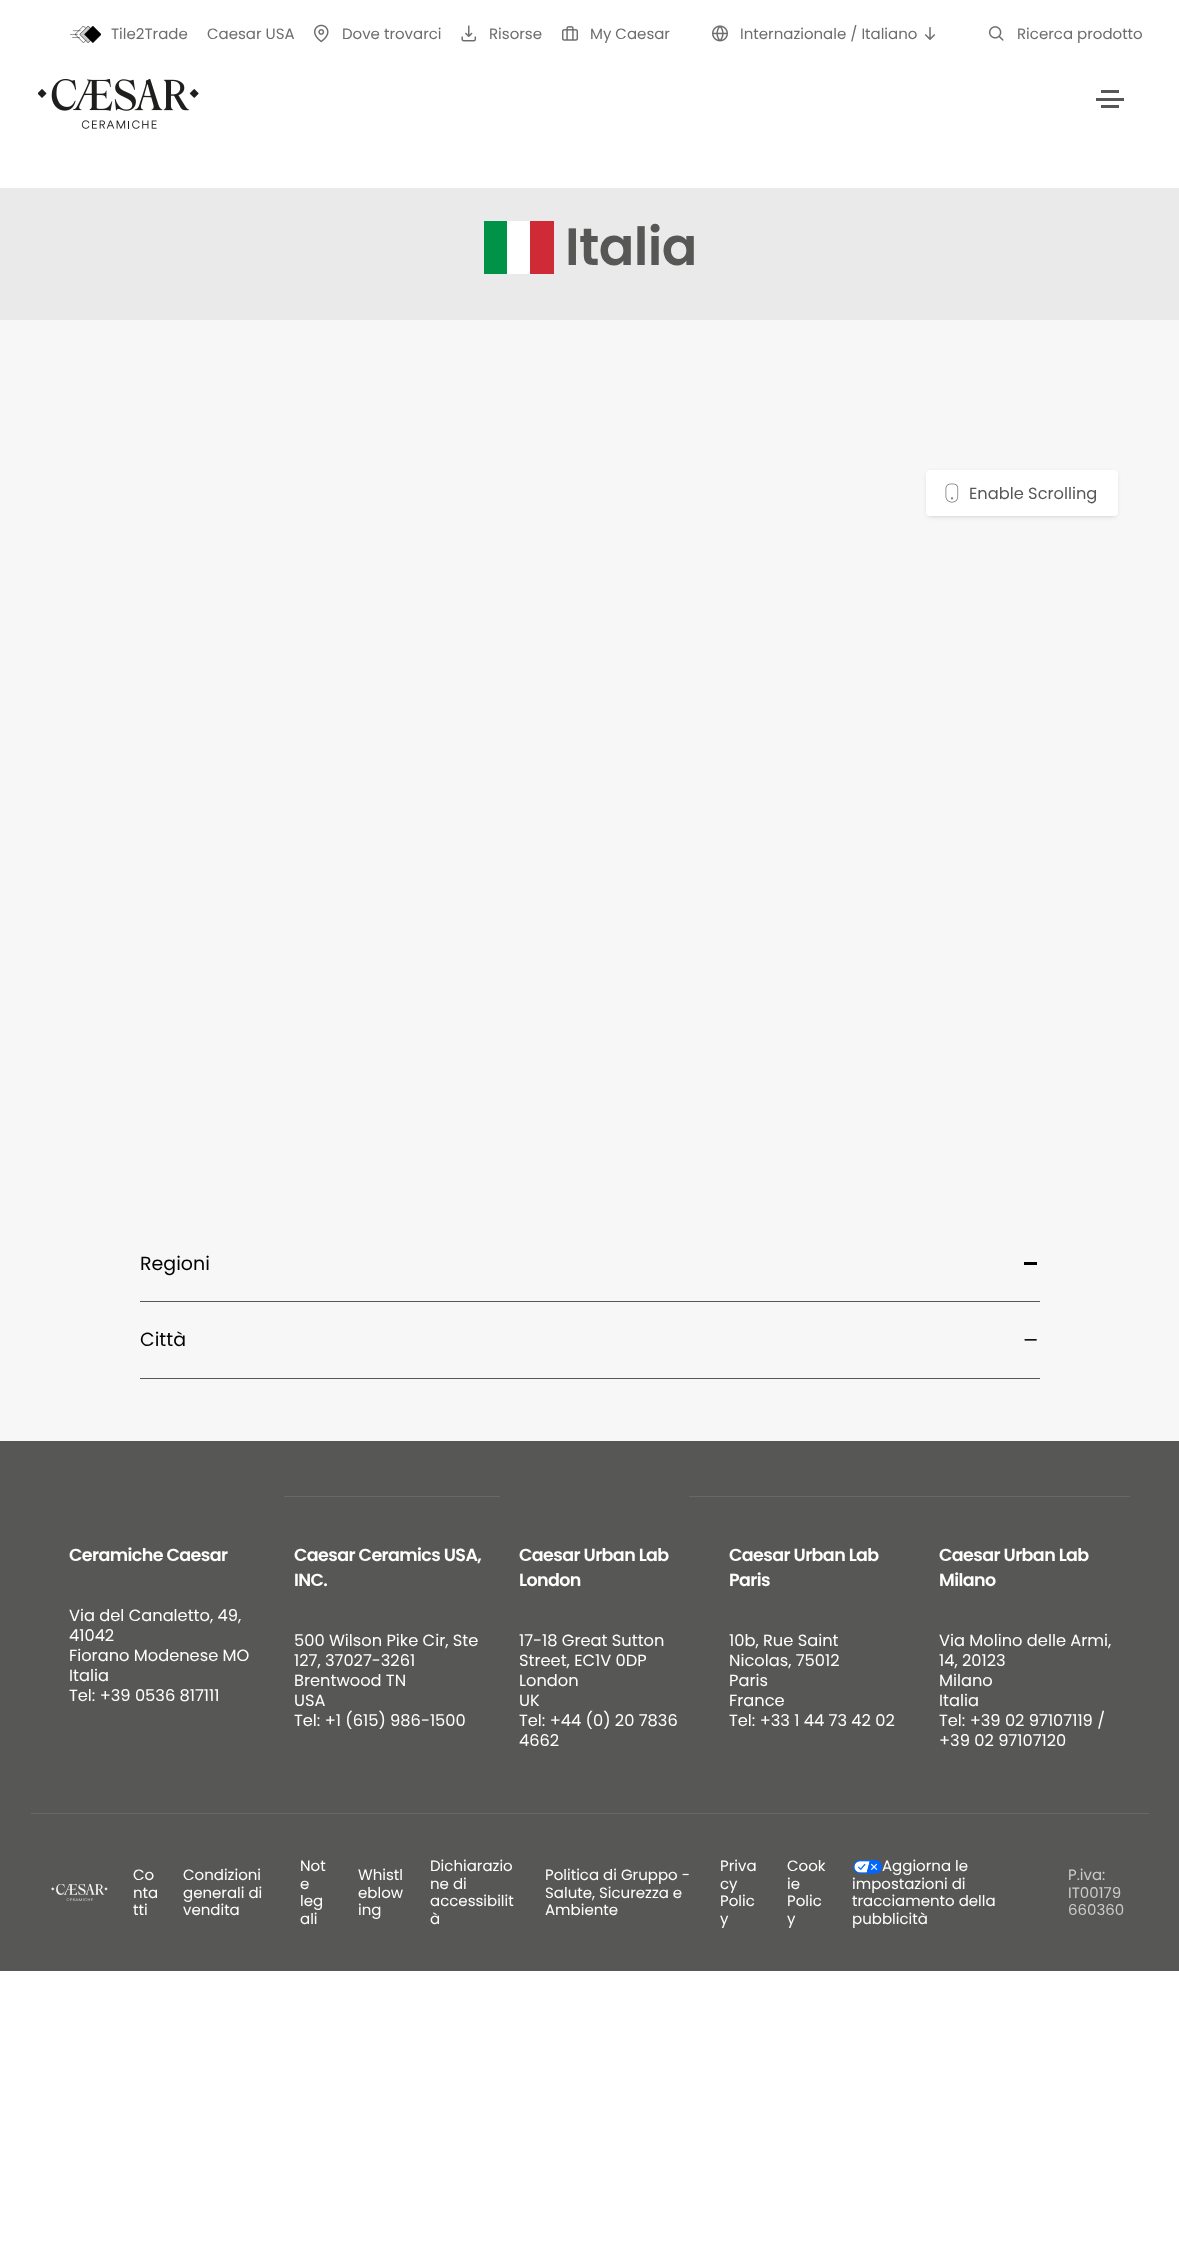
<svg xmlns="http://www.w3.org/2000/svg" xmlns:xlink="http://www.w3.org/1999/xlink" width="1179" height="2250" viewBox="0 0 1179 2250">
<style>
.cls-1{font:15px Poppins;fill:#6d6d6d}
.cls-2{font:600 52.5px Poppins;letter-spacing:-0.6px;fill:#575756}
.cls-3{font:16.25px Poppins;fill:#575756}
.cls-4{font:19px Poppins;fill:#000000}
.cls-5{font:600 17.5px Poppins;letter-spacing:-0.6px;fill:#ffffff}
.cls-6{font:16.25px Poppins;fill:#ffffff}
.cls-7{font:15px Poppins;fill:#ffffff}
.cls-8{font:15px Poppins;fill:#cccccc}
</style>
<rect width="100%" height="100%" fill="#ffffff"/>
<image xlink:href="image0.png" x="70" y="26" width="31" height="17"/>
<image xlink:href="image1.png" x="314" y="24" width="15" height="19"/>
<image xlink:href="image2.png" x="461" y="25" width="16" height="17"/>
<image xlink:href="image3.png" x="562" y="26" width="16" height="15"/>
<image xlink:href="image4.png" x="712" y="25" width="16" height="17"/>
<image xlink:href="image5.png" x="924" y="27" width="11" height="13"/>
<image xlink:href="image6.png" x="989" y="26" width="15" height="15"/>
<image xlink:href="image7.png" x="38" y="79" width="161" height="50"/>
<rect fill="#575756" x="1101" y="90" width="18" height="3"/>
<rect fill="#575756" x="1096" y="98" width="28" height="3"/>
<rect fill="#575756" x="1101" y="105" width="18" height="3"/>
<rect fill="#eaeaea" x="0" y="188" width="1179" height="132"/>
<rect fill="#ffffff" x="507" y="221" width="23" height="53"/>
<rect fill="#009246" x="484" y="221" width="23" height="53"/>
<rect fill="#ce2b37" x="530" y="221" width="24" height="53"/>
<rect fill="#f7f7f7" x="0" y="320" width="1179" height="1121"/>
<rect fill="#000000" fill-opacity="0.2" filter="blur(2.5px)" x="928" y="473" width="188" height="43" rx="2.5"/>
<rect fill="#ffffff" x="926" y="470" width="192" height="46" rx="4"/>
<image xlink:href="image8.png" x="945" y="483" width="14" height="20"/>
<rect fill="#575756" x="140" y="1301" width="900" height="1"/>
<rect fill="#000000" x="1024" y="1262" width="13" height="3"/>
<rect fill="#575756" x="140" y="1378" width="900" height="1"/>
<image xlink:href="image9.png" x="1024" y="1339" width="13" height="2"/>
<rect fill="#575756" x="0" y="1441" width="1179" height="530"/>
<rect fill="#686867" x="284" y="1496" width="216" height="1"/>
<rect fill="#686867" x="689" y="1496" width="441" height="1"/>
<rect fill="#686867" x="31" y="1813" width="1118" height="1"/>
<image xlink:href="image10.png" x="51" y="1884" width="57" height="17"/>
<image xlink:href="image11.png" x="853" y="1860" width="29" height="14"/>
<text class="cls-1" x="111" y="39">Tile2Trade</text>
<text class="cls-1" x="207" y="39">Caesar USA</text>
<text class="cls-1" x="342" y="39">Dove trovarci</text>
<text class="cls-1" x="489" y="39">Risorse</text>
<text class="cls-1" x="590" y="39">My Caesar</text>
<text class="cls-1" x="740" y="39">Internazionale / Italiano</text>
<text class="cls-1" x="1017" y="39">Ricerca prodotto</text>
<text class="cls-2" x="565" y="265">Italia</text>
<text class="cls-3" x="969" y="499">Enable Scrolling</text>
<text class="cls-4" x="140" y="1270">Regioni</text>
<text class="cls-4" x="140" y="1346">Città</text>
<text class="cls-5" x="69" y="1561">Ceramiche Caesar</text>
<text class="cls-6"><tspan x="69" y="1621">Via del Canaletto, 49,</tspan><tspan x="69" y="1641">41042</tspan><tspan x="69" y="1661">Fiorano Modenese MO</tspan><tspan x="69" y="1681">Italia</tspan><tspan x="69" y="1701">Tel: +39 0536 817111</tspan></text>
<text class="cls-5"><tspan x="294" y="1561">Caesar Ceramics USA,</tspan><tspan x="294" y="1586">INC.</tspan></text>
<text class="cls-6"><tspan x="294" y="1646">500 Wilson Pike Cir, Ste</tspan><tspan x="294" y="1666">127, 37027-3261</tspan><tspan x="294" y="1686">Brentwood TN</tspan><tspan x="294" y="1706">USA</tspan><tspan x="294" y="1726">Tel: +1 (615) 986-1500</tspan></text>
<text class="cls-5"><tspan x="519" y="1561">Caesar Urban Lab</tspan><tspan x="519" y="1586">London</tspan></text>
<text class="cls-6"><tspan x="519" y="1646">17-18 Great Sutton</tspan><tspan x="519" y="1666">Street, EC1V 0DP</tspan><tspan x="519" y="1686">London</tspan><tspan x="519" y="1706">UK</tspan><tspan x="519" y="1726">Tel: +44 (0) 20 7836</tspan><tspan x="519" y="1746">4662</tspan></text>
<text class="cls-5"><tspan x="729" y="1561">Caesar Urban Lab</tspan><tspan x="729" y="1586">Paris</tspan></text>
<text class="cls-6"><tspan x="729" y="1646">10b, Rue Saint</tspan><tspan x="729" y="1666">Nicolas, 75012</tspan><tspan x="729" y="1686">Paris</tspan><tspan x="729" y="1706">France</tspan><tspan x="729" y="1726">Tel: +33 1 44 73 42 02</tspan></text>
<text class="cls-5"><tspan x="939" y="1561">Caesar Urban Lab</tspan><tspan x="939" y="1586">Milano</tspan></text>
<text class="cls-6"><tspan x="939" y="1646">Via Molino delle Armi,</tspan><tspan x="939" y="1666">14, 20123</tspan><tspan x="939" y="1686">Milano</tspan><tspan x="939" y="1706">Italia</tspan><tspan x="939" y="1726">Tel: +39 02 97107119 /</tspan><tspan x="939" y="1746">+39 02 97107120</tspan></text>
<text class="cls-7"><tspan x="133" y="1880">Co</tspan><tspan x="133" y="1898">nta</tspan><tspan x="133" y="1915">tti</tspan></text>
<text class="cls-7"><tspan x="183" y="1880">Condizioni</tspan><tspan x="183" y="1898">generali di</tspan><tspan x="183" y="1915">vendita</tspan></text>
<text class="cls-7"><tspan x="300" y="1871">Not</tspan><tspan x="300" y="1889">e</tspan><tspan x="300" y="1906">leg</tspan><tspan x="300" y="1924">ali</tspan></text>
<text class="cls-7"><tspan x="358" y="1880">Whistl</tspan><tspan x="358" y="1898">eblow</tspan><tspan x="358" y="1915">ing</tspan></text>
<text class="cls-7"><tspan x="430" y="1871">Dichiarazio</tspan><tspan x="430" y="1889">ne di</tspan><tspan x="430" y="1906">accessibilit</tspan><tspan x="430" y="1924">à</tspan></text>
<text class="cls-7"><tspan x="545" y="1880">Politica di Gruppo -</tspan><tspan x="545" y="1898">Salute, Sicurezza e</tspan><tspan x="545" y="1915">Ambiente</tspan></text>
<text class="cls-7"><tspan x="720" y="1871">Priva</tspan><tspan x="720" y="1889">cy</tspan><tspan x="720" y="1906">Polic</tspan><tspan x="720" y="1924">y</tspan></text>
<text class="cls-7"><tspan x="787" y="1871">Cook</tspan><tspan x="787" y="1889">ie</tspan><tspan x="787" y="1906">Polic</tspan><tspan x="787" y="1924">y</tspan></text>
<text class="cls-7" x="882" y="1871">Aggiorna le</text>
<text class="cls-7"><tspan x="852" y="1889">impostazioni di</tspan><tspan x="852" y="1906">tracciamento della</tspan><tspan x="852" y="1924">pubblicità</tspan></text>
<text class="cls-8"><tspan x="1068" y="1880">P.iva:</tspan><tspan x="1068" y="1898">IT00179</tspan><tspan x="1068" y="1915">660360</tspan></text>
</svg>
